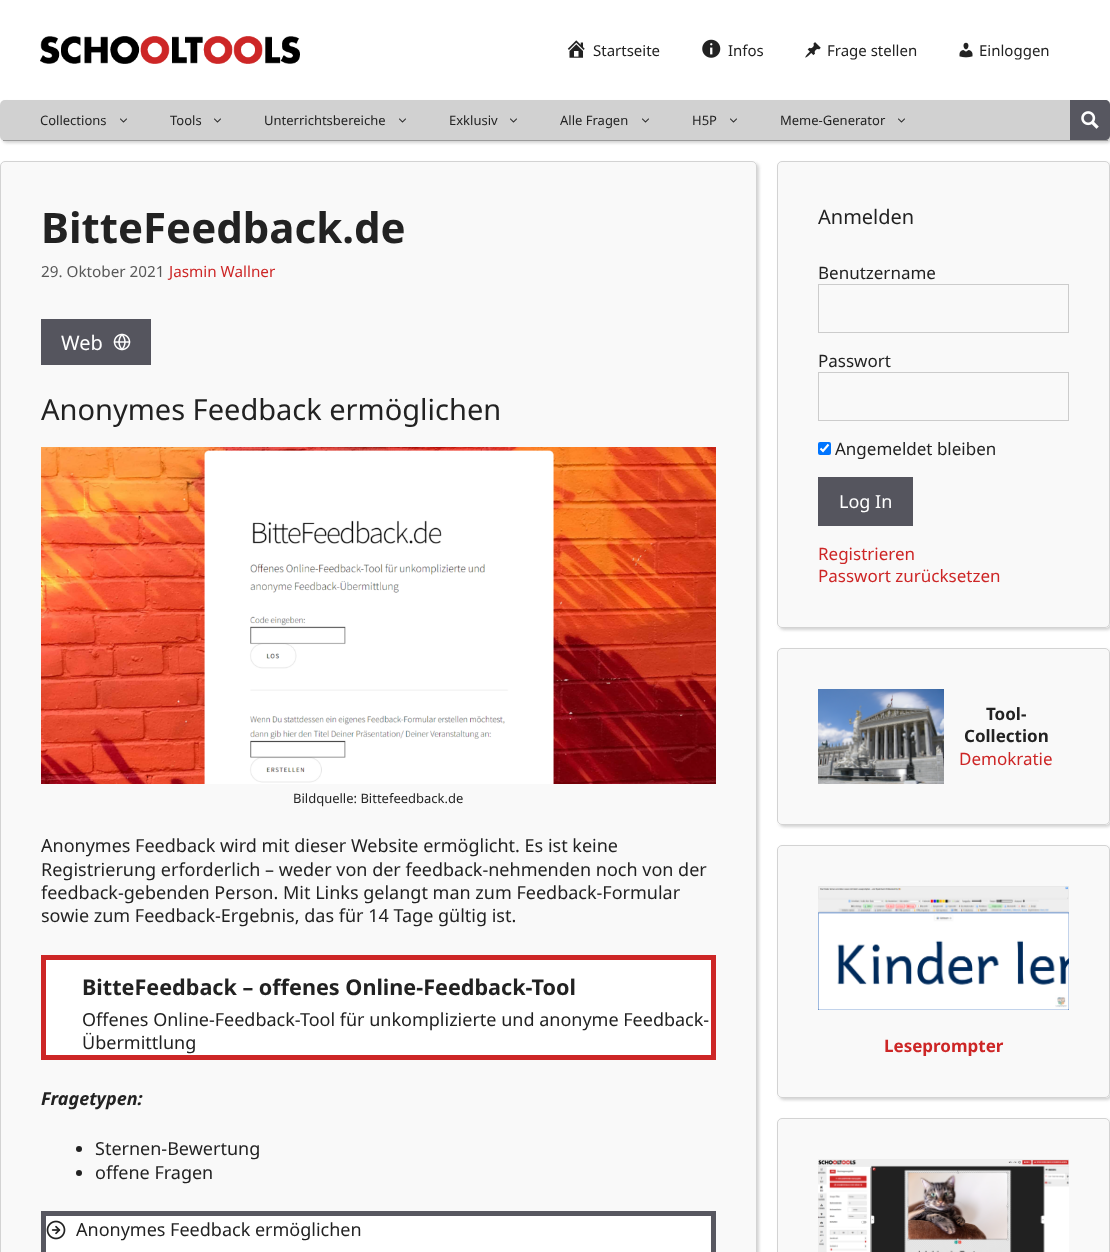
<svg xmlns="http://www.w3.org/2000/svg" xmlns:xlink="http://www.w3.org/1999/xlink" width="1110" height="1252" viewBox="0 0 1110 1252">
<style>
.cls-1{font:15px Noto Sans;fill:#222222}
.cls-2{font:13px Noto Sans;fill:#222222}
.cls-3{font:bold 42px Noto Sans;fill:#222222}
.cls-4{font:15.25px Noto Sans;fill:#595959}
.cls-5{font:15.25px Noto Sans;fill:#cd2626}
.cls-6{font:20px Noto Sans;fill:#ffffff}
.cls-7{font:29px Noto Sans;fill:#222222}
.cls-8{font:18px Noto Sans;fill:#222222}
.cls-9{font:bold 21.6px Noto Sans;fill:#222222}
.cls-10{font:italic bold 18px Noto Sans;fill:#222222}
.cls-11{font:20px Noto Sans;fill:#222222}
.cls-12{font:17px Noto Sans;fill:#222222}
.cls-13{font:18px Noto Sans;fill:#ffffff}
.cls-14{font:17px Noto Sans;fill:#cd2626}
.cls-15{font:bold 17px Noto Sans;fill:#222222}
.cls-16{font:bold 17px Noto Sans;fill:#cd2626}
</style>
<defs>
<clipPath id="clip1"><path d="M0 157H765V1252H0ZM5 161H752C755 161 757 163 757 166V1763C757 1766 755 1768 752 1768H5C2 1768 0 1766 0 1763V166C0 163 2 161 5 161Z" clip-rule="evenodd"/></clipPath>
<clipPath id="clip2"><path d="M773 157H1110V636H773ZM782 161H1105C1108 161 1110 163 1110 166V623C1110 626 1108 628 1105 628H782C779 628 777 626 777 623V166C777 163 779 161 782 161Z" clip-rule="evenodd"/></clipPath>
<clipPath id="clip3"><path d="M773 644H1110V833H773ZM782 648H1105C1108 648 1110 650 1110 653V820C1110 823 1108 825 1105 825H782C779 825 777 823 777 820V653C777 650 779 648 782 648Z" clip-rule="evenodd"/></clipPath>
<clipPath id="clip4"><path d="M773 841H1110V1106H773ZM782 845H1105C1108 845 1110 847 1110 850V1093C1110 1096 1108 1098 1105 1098H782C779 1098 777 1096 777 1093V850C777 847 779 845 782 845Z" clip-rule="evenodd"/></clipPath>
<clipPath id="clip5"><path d="M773 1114H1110V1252H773ZM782 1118H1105C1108 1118 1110 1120 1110 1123V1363C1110 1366 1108 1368 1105 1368H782C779 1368 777 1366 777 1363V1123C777 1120 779 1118 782 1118Z" clip-rule="evenodd"/></clipPath>
</defs>
<rect width="100%" height="100%" fill="#ffffff"/>
<image xlink:href="image0.png" x="40" y="36" width="260" height="28"/>
<image xlink:href="image1.png" x="567" y="40" width="18" height="18"/>
<image xlink:href="image2.png" x="702" y="39" width="19" height="19"/>
<image xlink:href="image3.png" x="805" y="42" width="16" height="16"/>
<image xlink:href="image4.png" x="959" y="42" width="14" height="16"/>
<rect fill="#d3d3d3" filter="blur(1.5px)" x="2" y="102" width="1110" height="41" rx="5"/>
<rect fill="#d1d1d1" x="0" y="100" width="1110" height="41" rx="5"/>
<rect fill="#9b9b9b" x="3" y="140" width="1105" height="1"/>
<image xlink:href="image5.png" x="120" y="118" width="7" height="5"/>
<image xlink:href="image5.png" x="214" y="118" width="7" height="5"/>
<image xlink:href="image5.png" x="399" y="118" width="7" height="5"/>
<image xlink:href="image5.png" x="510" y="118" width="7" height="5"/>
<image xlink:href="image5.png" x="642" y="118" width="7" height="5"/>
<image xlink:href="image5.png" x="730" y="118" width="7" height="5"/>
<image xlink:href="image5.png" x="898" y="118" width="7" height="5"/>
<path fill="#575760" d="M1070 100H1105C1108 100 1110 102 1110 105V135C1110 138 1108 140 1105 140H1070Z"/>
<image xlink:href="image6.png" x="1081" y="111" width="18" height="18"/>
<g clip-path="url(#clip1)">
<rect fill="#d3d3d3" filter="blur(1.5px)" x="2" y="163" width="757" height="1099" rx="5"/>
</g>
<rect fill="#f0f0f0" fill-opacity="0.42" stroke="#d3d3d3" x="0.5" y="161.5" width="756" height="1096" rx="4.5"/>
<rect fill="#55555e" x="41" y="319" width="110" height="46"/>
<image xlink:href="image7.png" x="113" y="333" width="18" height="18"/>
<image xlink:href="image8.png" x="41" y="447" width="675" height="337"/>
<rect fill="#ffffff" stroke="#cd2626" stroke-width="5" x="43.5" y="957.5" width="670" height="100"/>
<circle fill="#222222" cx="79" cy="1149" r="3"/>
<circle fill="#222222" cx="79" cy="1173" r="3"/>
<rect fill="#ffffff" stroke="#575760" stroke-width="5" x="43.5" y="1213.5" width="670" height="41"/>
<image xlink:href="image9.png" x="46" y="1220" width="20" height="20"/>
<g clip-path="url(#clip2)">
<rect fill="#d3d3d3" filter="blur(1.5px)" x="779" y="163" width="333" height="467" rx="5"/>
</g>
<rect fill="#f0f0f0" fill-opacity="0.42" stroke="#d3d3d3" x="777.5" y="161.5" width="332" height="466" rx="4.5"/>
<rect fill="none" stroke="#cccccc" x="818.5" y="284.5" width="250" height="48"/>
<rect fill="none" stroke="#cccccc" x="818.5" y="372.5" width="250" height="48"/>
<rect fill="#0075ff" x="818" y="442" width="13" height="13" rx="2"/>
<path fill="none" stroke="#ffffff" stroke-width="2.1" d="M820.5 448.5L823 451L828.5 444.5"/>
<rect fill="#55555e" x="818" y="477" width="95" height="49"/>
<g clip-path="url(#clip3)">
<rect fill="#d3d3d3" filter="blur(1.5px)" x="779" y="650" width="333" height="177" rx="5"/>
</g>
<rect fill="#f0f0f0" fill-opacity="0.42" stroke="#d3d3d3" x="777.5" y="648.5" width="332" height="176" rx="4.5"/>
<image xlink:href="image10.png" x="818" y="689" width="126" height="95"/>
<g clip-path="url(#clip4)">
<rect fill="#d3d3d3" filter="blur(1.5px)" x="779" y="847" width="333" height="253" rx="5"/>
</g>
<rect fill="#f0f0f0" fill-opacity="0.42" stroke="#d3d3d3" x="777.5" y="845.5" width="332" height="252" rx="4.5"/>
<image xlink:href="image11.png" x="818" y="886" width="251" height="124"/>
<g clip-path="url(#clip5)">
<rect fill="#d3d3d3" filter="blur(1.5px)" x="779" y="1120" width="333" height="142" rx="5"/>
</g>
<rect fill="#f0f0f0" fill-opacity="0.42" stroke="#d3d3d3" x="777.5" y="1118.5" width="332" height="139" rx="4.5"/>
<image xlink:href="image12.png" x="818" y="1159" width="251" height="93"/>
<text class="cls-1" x="593" y="56">Startseite</text>
<text class="cls-1" x="728" y="56">Infos</text>
<text class="cls-1" x="827" y="56">Frage stellen</text>
<text class="cls-1" x="979" y="56">Einloggen</text>
<text class="cls-2" x="40" y="125">Collections</text>
<text class="cls-2" x="170" y="125">Tools</text>
<text class="cls-2" x="264" y="125">Unterrichtsbereiche</text>
<text class="cls-2" x="449" y="125">Exklusiv</text>
<text class="cls-2" x="560" y="125">Alle Fragen</text>
<text class="cls-2" x="692" y="125">H5P</text>
<text class="cls-2" x="780" y="125">Meme-Generator</text>
<text class="cls-3" x="41" y="243">BitteFeedback.de</text>
<text class="cls-4" x="41" y="277">29. Oktober 2021</text>
<text class="cls-5" x="169" y="277">Jasmin Wallner</text>
<text class="cls-6" x="61" y="350">Web</text>
<text class="cls-7" x="41" y="420">Anonymes Feedback ermöglichen</text>
<text class="cls-2" x="293" y="803">Bildquelle: Bittefeedback.de</text>
<text class="cls-8"><tspan x="41" y="852">Anonymes Feedback wird mit dieser Website ermöglicht. Es ist keine</tspan><tspan x="41" y="876">Registrierung erforderlich – weder von der feedback-nehmenden noch von der</tspan><tspan x="41" y="899">feedback-gebenden Person. Mit Links gelangt man zum Feedback-Formular</tspan><tspan x="41" y="922">sowie zum Feedback-Ergebnis, das für 14 Tage gültig ist.</tspan></text>
<text class="cls-9" x="82" y="995">BitteFeedback – offenes Online-Feedback-Tool</text>
<text class="cls-8"><tspan x="82" y="1026">Offenes Online-Feedback-Tool für unkomplizierte und anonyme Feedback-</tspan><tspan x="82" y="1049">Übermittlung</tspan></text>
<text class="cls-10" x="41" y="1105">Fragetypen:</text>
<text class="cls-8"><tspan x="95" y="1155">Sternen-Bewertung</tspan><tspan x="95" y="1179">offene Fragen</tspan></text>
<text class="cls-8" x="76" y="1236">Anonymes Feedback ermöglichen</text>
<text class="cls-11" x="818" y="224">Anmelden</text>
<text class="cls-12" x="818" y="279">Benutzername</text>
<text class="cls-12" x="818" y="367">Passwort</text>
<text class="cls-12" x="835" y="455">Angemeldet bleiben</text>
<text class="cls-13" x="839" y="508">Log In</text>
<text class="cls-14"><tspan x="818" y="560">Registrieren</tspan><tspan x="818" y="582">Passwort zurücksetzen</tspan></text>
<text class="cls-15" x="986" y="720">Tool-</text>
<text class="cls-15" x="964" y="742">Collection</text>
<text class="cls-14" x="959" y="765">Demokratie</text>
<text class="cls-16" x="884" y="1052">Leseprompter</text>
</svg>
